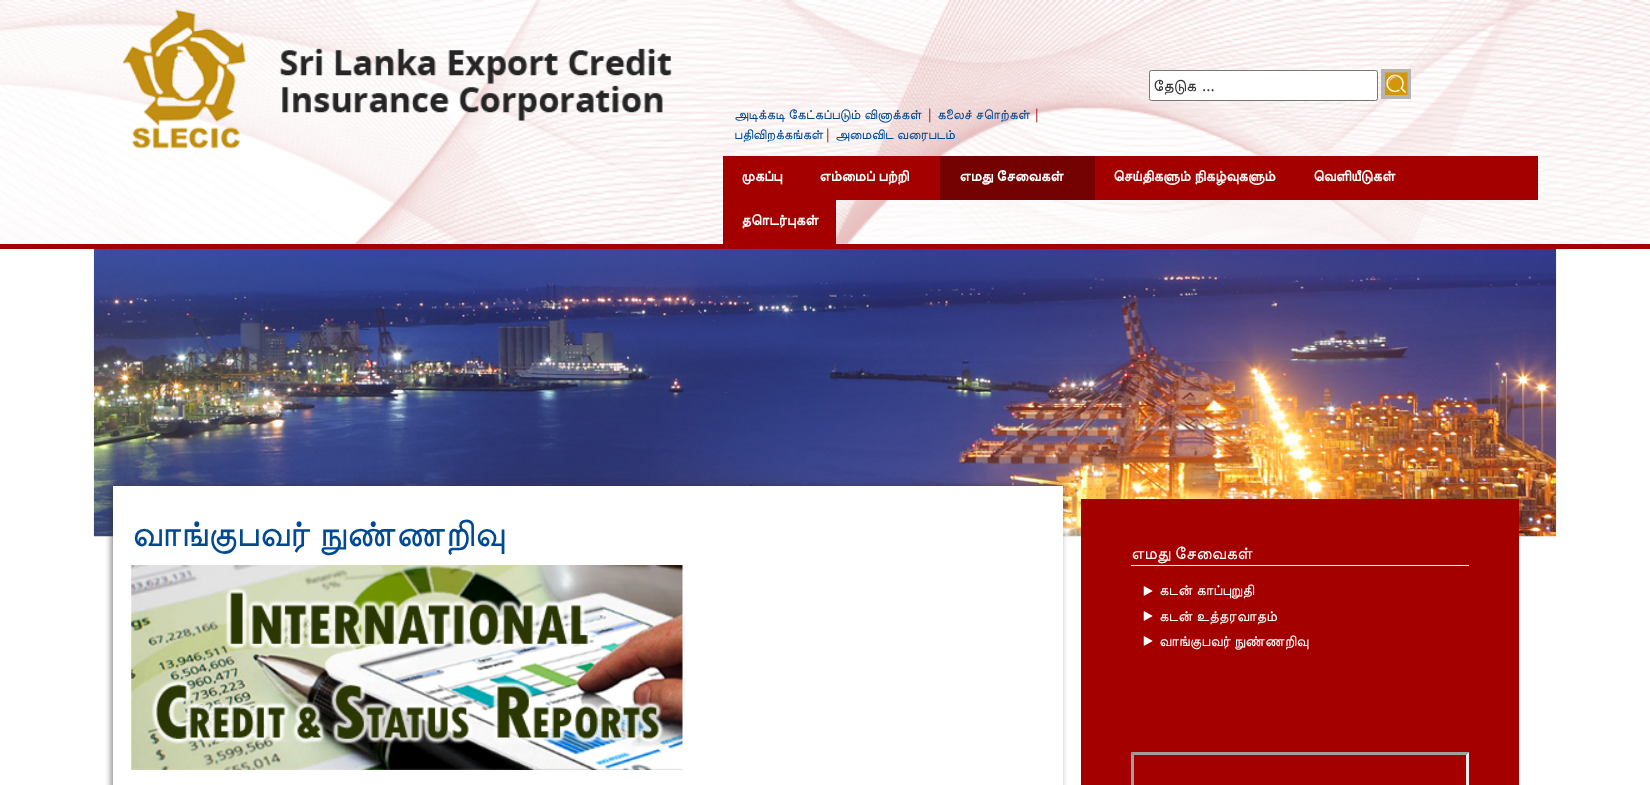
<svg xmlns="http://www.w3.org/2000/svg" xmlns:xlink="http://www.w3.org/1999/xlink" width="1650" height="785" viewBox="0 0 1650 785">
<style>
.cls-1{font:16px FreeSans;fill:#333333}
.cls-2{font:16px Open Sans;fill:#333333}
.cls-3{font:13.75px FreeSans;fill:#014a92}
.cls-4{font:13.75px Open Sans;fill:#9e0b0f}
.cls-5{font:bold 15px FreeSans;fill:#ffffff}
.cls-6{font:37.5px FreeSans;fill:#014a92}
.cls-7{font:17.5px FreeSans;fill:#ffffff}
.cls-8{font:15px FreeSans;fill:#ffffff}
</style>
<rect width="100%" height="100%" fill="#ffffff"/>
<image xlink:href="image0.png" x="0" y="0" width="1650" height="244"/>
<rect fill="#a40000" x="0" y="244" width="1650" height="5"/>
<image xlink:href="image1.png" x="122" y="9" width="550" height="140"/>
<rect fill="#ffffff" stroke="#767676" x="1149.5" y="70.5" width="228" height="30" rx="2"/>
<rect fill="#b5b5b5" x="1381" y="69" width="30" height="30"/>
<image xlink:href="image2.png" x="1385" y="72" width="23" height="23"/>
<rect fill="#a40000" x="723" y="156" width="815" height="44"/>
<rect fill="#740202" x="940" y="156" width="155" height="44"/>
<rect fill="#a40000" x="723" y="200" width="113" height="44"/>
<image xlink:href="image3.png" x="93" y="248" width="1464" height="289"/>
<rect fill="#323232" fill-opacity="0.57" filter="blur(3px)" x="111" y="486" width="950" height="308"/>
<rect fill="#ffffff" x="113" y="486" width="950" height="299"/>
<image xlink:href="image4.png" x="131" y="565" width="552" height="205"/>
<rect fill="#a40000" x="1081" y="499" width="438" height="286"/>
<rect fill="#ffffff" x="1131" y="565" width="338" height="1"/>
<image xlink:href="image5.png" x="1143" y="586" width="10" height="10"/>
<image xlink:href="image5.png" x="1143" y="611" width="10" height="10"/>
<image xlink:href="image5.png" x="1143" y="636" width="10" height="10"/>
<path fill="#9f9f9f" d="M1131 752H1469L1466 755H1134Z"/>
<path fill="#9f9f9f" d="M1131 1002V752L1134 755V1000Z"/>
<path fill="#eeeeee" d="M1469 752V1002L1466 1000V755Z"/>
<text class="cls-1" x="1153" y="91">தேடுக</text>
<text class="cls-2" x="1202" y="91">...</text>
<text class="cls-3" x="734" y="119">அடிக்கடி கேட்கப்படும் வினாக்கள்</text>
<text class="cls-4" x="926" y="119">|</text>
<text class="cls-3" x="937" y="119">கலைச் சொற்கள்</text>
<text class="cls-4" x="1033" y="119">|</text>
<text class="cls-3" x="734" y="139">பதிவிறக்கங்கள்</text>
<text class="cls-4" x="824" y="139">|</text>
<text class="cls-3" x="835" y="139">அமைவிட வரைபடம்</text>
<text class="cls-5" x="741" y="181">முகப்பு</text>
<text class="cls-5" x="819" y="181">எம்மைப் பற்றி</text>
<text class="cls-5" x="959" y="181">எமது சேவைகள்</text>
<text class="cls-5" x="1113" y="181">செய்திகளும் நிகழ்வுகளும்</text>
<text class="cls-5" x="1313" y="181">வெளியீடுகள்</text>
<text class="cls-5" x="741" y="225">தொடர்புகள்</text>
<text class="cls-6" x="131" y="546">வாங்குபவர் நுண்ணறிவு</text>
<text class="cls-7" x="1131" y="559">எமது சேவைகள்</text>
<text class="cls-8"><tspan x="1159" y="595">கடன் காப்புறுதி</tspan><tspan x="1159" y="621">கடன் உத்தரவாதம்</tspan><tspan x="1159" y="646">வாங்குபவர் நுண்ணறிவு</tspan></text>
</svg>
